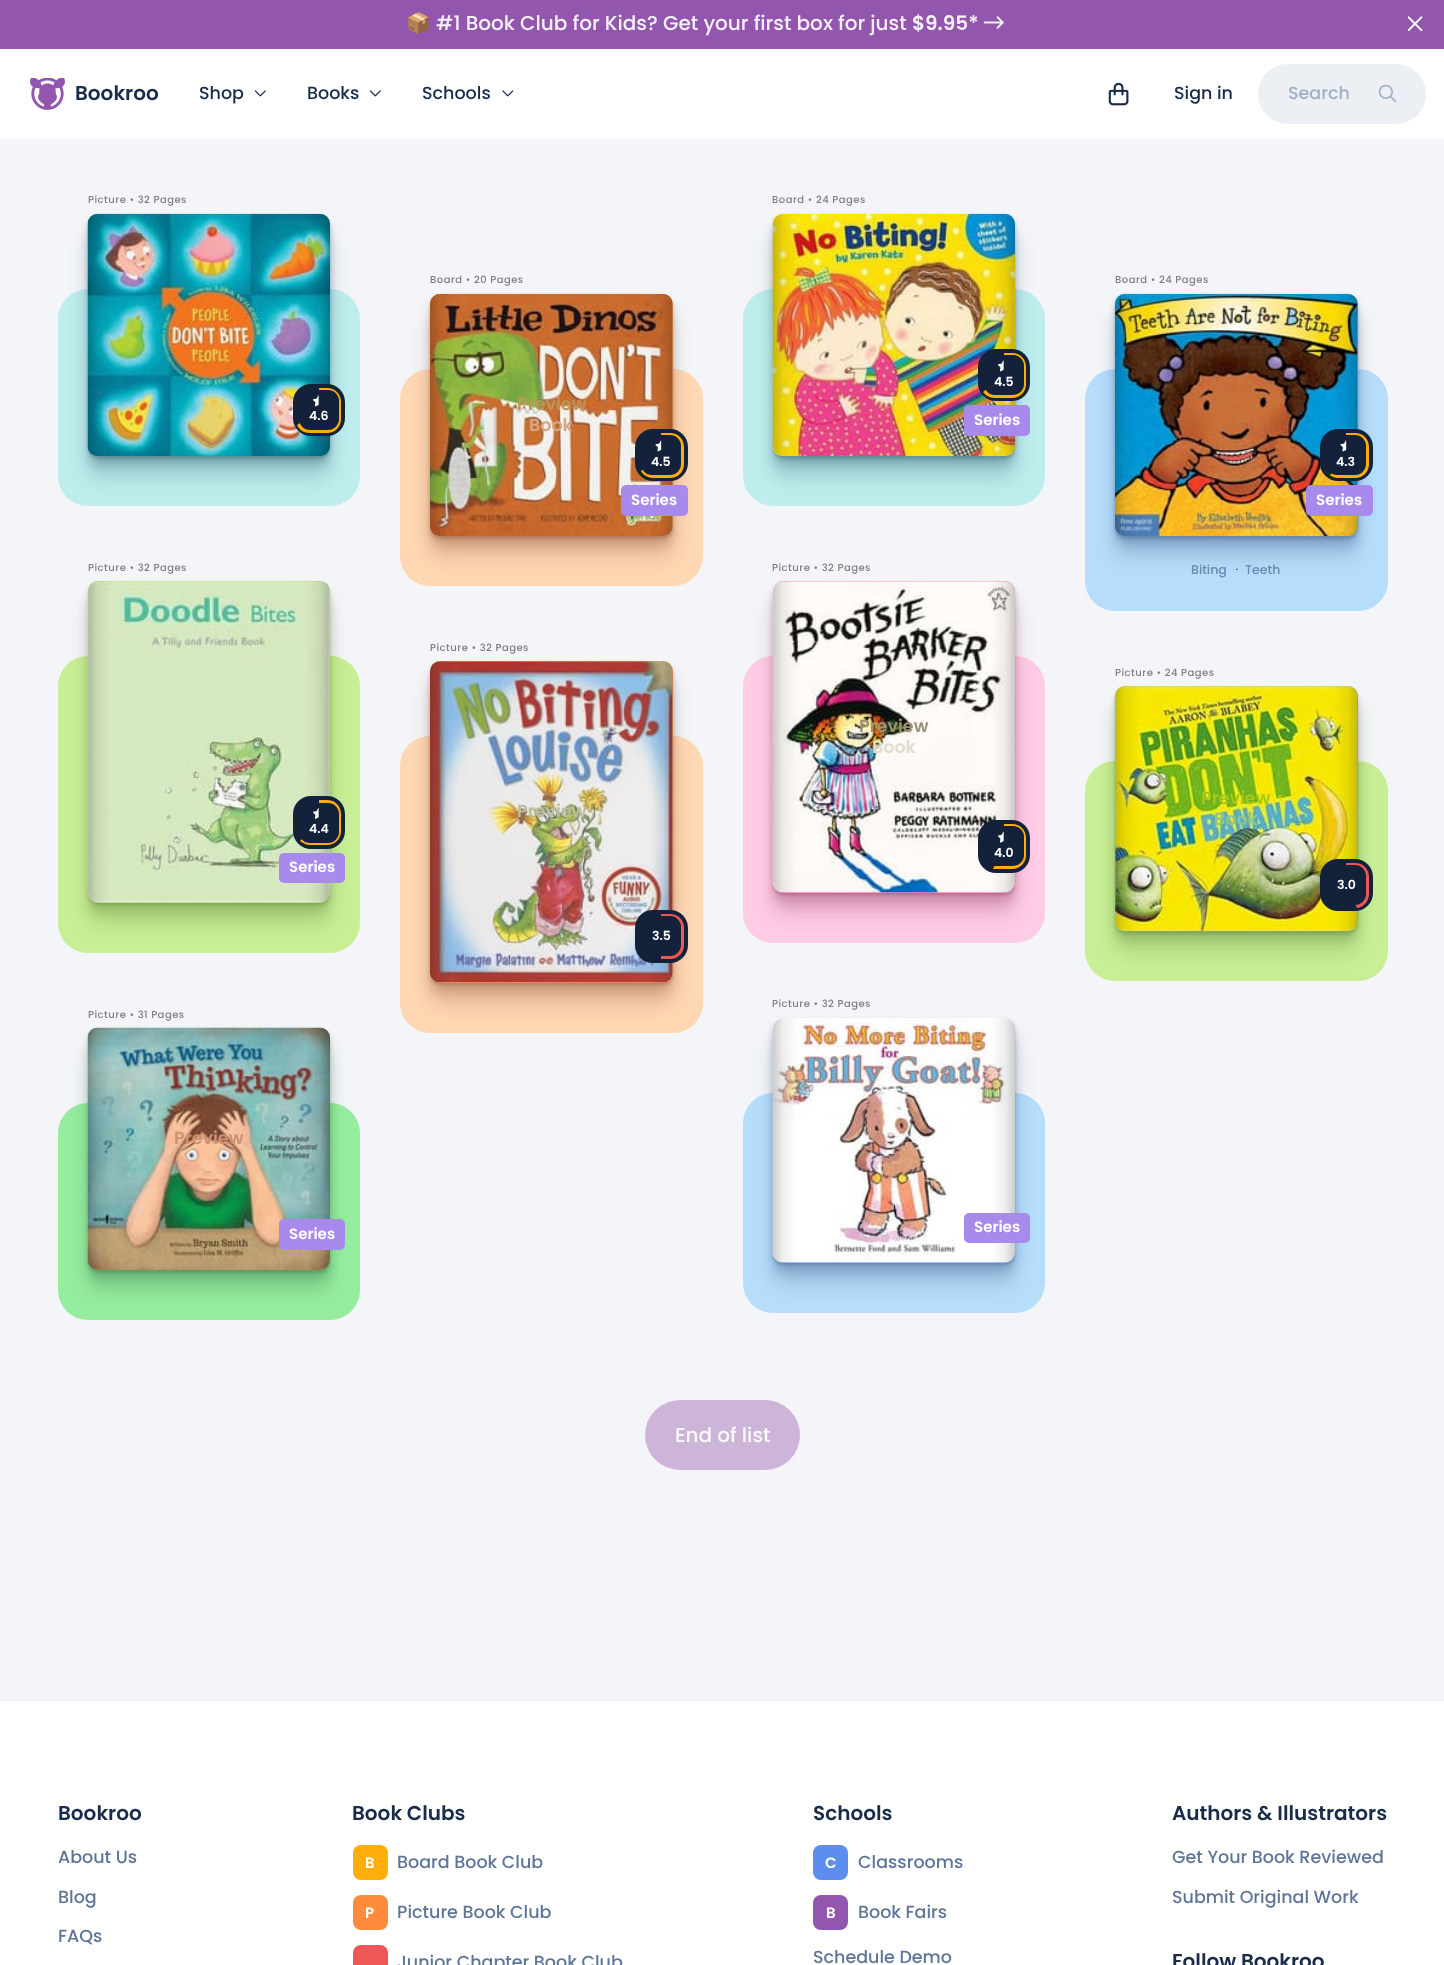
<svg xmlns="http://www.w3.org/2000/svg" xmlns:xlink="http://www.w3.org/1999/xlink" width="1444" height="1965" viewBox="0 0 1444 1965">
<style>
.cls-1{font:20px Noto Color Emoji;fill:#f6f1f9}
.cls-2{font:500 20px Poppins;fill:#f6f1f9}
.cls-3{font:600 20px Poppins;fill:#f6f1f9}
.cls-4{font:600 20px Poppins;fill:#192c49}
.cls-5{font:500 17.5px Poppins;fill:#192c49}
.cls-6{font:500 17.5px Poppins;fill:#9fafc8}
.cls-7{font:500 10px Poppins;letter-spacing:0.5px;fill:#7f7f81}
.cls-8{font:600 12.5px Poppins;fill:#ffffff}
.cls-9{font:600 15px Poppins;fill:#ffffff}
.cls-10{font:600 17.5px Poppins;fill:#ca9373}
.cls-11{font:600 17.5px Poppins;fill:#bc965a}
.cls-12{font:600 17.5px Poppins;fill:#d5a685}
.cls-13{font:600 17.5px Poppins;fill:#bbbd9e}
.cls-14{font:600 17.5px Poppins;fill:#9b9173}
.cls-15{font:600 17.5px Poppins;fill:#e1ddce}
.cls-16{font:500 12.5px Poppins;fill:#6788af}
.cls-17{font:12.5px DejaVu Sans;fill:#192c49}
.cls-18{font:600 17.5px Poppins;fill:#a5c917}
.cls-19{font:600 17.5px Poppins;fill:#91c58b}
.cls-20{font:500 20px Poppins;fill:#f8f9fb}
.cls-21{font:500 17.5px Poppins;fill:#607698}
</style>
<defs>
<linearGradient id="g1" gradientUnits="userSpaceOnUse" x1="88" y1="335" x2="330" y2="335"><stop offset="0" stop-color="#000000" stop-opacity="0.2"/><stop offset="0.04" stop-color="#000000" stop-opacity="0.07"/><stop offset="0.1" stop-color="#000000" stop-opacity="0"/><stop offset="0.9" stop-color="#000000" stop-opacity="0"/><stop offset="0.96" stop-color="#000000" stop-opacity="0.07"/><stop offset="1" stop-color="#000000" stop-opacity="0.2"/></linearGradient>
<linearGradient id="g2" gradientUnits="userSpaceOnUse" x1="87" y1="742" x2="330" y2="742"><stop offset="0" stop-color="#000000" stop-opacity="0.2"/><stop offset="0.04" stop-color="#000000" stop-opacity="0.07"/><stop offset="0.1" stop-color="#000000" stop-opacity="0"/><stop offset="0.9" stop-color="#000000" stop-opacity="0"/><stop offset="0.96" stop-color="#000000" stop-opacity="0.07"/><stop offset="1" stop-color="#000000" stop-opacity="0.2"/></linearGradient>
<linearGradient id="g3" gradientUnits="userSpaceOnUse" x1="88" y1="1149" x2="330" y2="1149"><stop offset="0" stop-color="#000000" stop-opacity="0.2"/><stop offset="0.04" stop-color="#000000" stop-opacity="0.07"/><stop offset="0.1" stop-color="#000000" stop-opacity="0"/><stop offset="0.9" stop-color="#000000" stop-opacity="0"/><stop offset="0.96" stop-color="#000000" stop-opacity="0.07"/><stop offset="1" stop-color="#000000" stop-opacity="0.2"/></linearGradient>
<linearGradient id="g4" gradientUnits="userSpaceOnUse" x1="430" y1="415" x2="673" y2="415"><stop offset="0" stop-color="#000000" stop-opacity="0.2"/><stop offset="0.04" stop-color="#000000" stop-opacity="0.07"/><stop offset="0.1" stop-color="#000000" stop-opacity="0"/><stop offset="0.9" stop-color="#000000" stop-opacity="0"/><stop offset="0.96" stop-color="#000000" stop-opacity="0.07"/><stop offset="1" stop-color="#000000" stop-opacity="0.2"/></linearGradient>
<linearGradient id="g5" gradientUnits="userSpaceOnUse" x1="430" y1="822" x2="673" y2="822"><stop offset="0" stop-color="#000000" stop-opacity="0.2"/><stop offset="0.04" stop-color="#000000" stop-opacity="0.07"/><stop offset="0.1" stop-color="#000000" stop-opacity="0"/><stop offset="0.9" stop-color="#000000" stop-opacity="0"/><stop offset="0.96" stop-color="#000000" stop-opacity="0.07"/><stop offset="1" stop-color="#000000" stop-opacity="0.2"/></linearGradient>
<linearGradient id="g6" gradientUnits="userSpaceOnUse" x1="773" y1="335" x2="1015" y2="335"><stop offset="0" stop-color="#000000" stop-opacity="0.2"/><stop offset="0.04" stop-color="#000000" stop-opacity="0.07"/><stop offset="0.1" stop-color="#000000" stop-opacity="0"/><stop offset="0.9" stop-color="#000000" stop-opacity="0"/><stop offset="0.96" stop-color="#000000" stop-opacity="0.07"/><stop offset="1" stop-color="#000000" stop-opacity="0.2"/></linearGradient>
<linearGradient id="g7" gradientUnits="userSpaceOnUse" x1="773" y1="737" x2="1015" y2="737"><stop offset="0" stop-color="#000000" stop-opacity="0.2"/><stop offset="0.04" stop-color="#000000" stop-opacity="0.07"/><stop offset="0.1" stop-color="#000000" stop-opacity="0"/><stop offset="0.9" stop-color="#000000" stop-opacity="0"/><stop offset="0.96" stop-color="#000000" stop-opacity="0.07"/><stop offset="1" stop-color="#000000" stop-opacity="0.2"/></linearGradient>
<linearGradient id="g8" gradientUnits="userSpaceOnUse" x1="773" y1="1140" x2="1015" y2="1140"><stop offset="0" stop-color="#000000" stop-opacity="0.2"/><stop offset="0.04" stop-color="#000000" stop-opacity="0.07"/><stop offset="0.1" stop-color="#000000" stop-opacity="0"/><stop offset="0.9" stop-color="#000000" stop-opacity="0"/><stop offset="0.96" stop-color="#000000" stop-opacity="0.07"/><stop offset="1" stop-color="#000000" stop-opacity="0.2"/></linearGradient>
<linearGradient id="g9" gradientUnits="userSpaceOnUse" x1="1115" y1="415" x2="1358" y2="415"><stop offset="0" stop-color="#000000" stop-opacity="0.2"/><stop offset="0.04" stop-color="#000000" stop-opacity="0.07"/><stop offset="0.1" stop-color="#000000" stop-opacity="0"/><stop offset="0.9" stop-color="#000000" stop-opacity="0"/><stop offset="0.96" stop-color="#000000" stop-opacity="0.07"/><stop offset="1" stop-color="#000000" stop-opacity="0.2"/></linearGradient>
<linearGradient id="g10" gradientUnits="userSpaceOnUse" x1="1115" y1="809" x2="1358" y2="809"><stop offset="0" stop-color="#000000" stop-opacity="0.2"/><stop offset="0.04" stop-color="#000000" stop-opacity="0.07"/><stop offset="0.1" stop-color="#000000" stop-opacity="0"/><stop offset="0.9" stop-color="#000000" stop-opacity="0"/><stop offset="0.96" stop-color="#000000" stop-opacity="0.07"/><stop offset="1" stop-color="#000000" stop-opacity="0.2"/></linearGradient>
</defs>
<rect width="100%" height="100%" fill="#f4f5f8"/>
<rect fill="#ffffff" x="0" y="49" width="1444" height="90"/>
<rect fill="#9256ae" x="0" y="0" width="1444" height="49"/>
<image xlink:href="image0.png" x="983" y="16" width="21" height="13"/>
<image xlink:href="image1.png" x="1408" y="16" width="15" height="15"/>
<image xlink:href="image2.png" x="30" y="78" width="35" height="32"/>
<image xlink:href="image3.png" x="254" y="90" width="12" height="7"/>
<image xlink:href="image3.png" x="369" y="90" width="12" height="7"/>
<image xlink:href="image4.png" x="502" y="90" width="12" height="7"/>
<image xlink:href="image5.png" x="1108" y="82" width="21" height="24"/>
<rect fill="#eceff4" x="1258" y="64" width="168" height="60" rx="30"/>
<image xlink:href="image6.png" x="1378" y="84" width="19" height="19"/>
<rect fill="#bfeded" x="58" y="289" width="302" height="217" rx="30"/>
<rect fill="#003347" fill-opacity="0.2" filter="blur(10px)" x="88" y="234" width="242" height="242" rx="10"/>
<rect fill="#003347" fill-opacity="0.15" filter="blur(5px)" x="88" y="224" width="242" height="242" rx="10"/>
<rect fill="#003347" fill-opacity="0.15" filter="blur(2.5px)" x="88" y="216" width="242" height="243" rx="10"/>
<rect fill="#003347" fill-opacity="0.15" filter="blur(1px)" x="88" y="216" width="242" height="243" rx="10"/>
<image xlink:href="image7.png" x="87" y="213" width="243" height="244"/>
<rect fill="url(#g1)" x="88" y="214" width="242" height="242" rx="10"/>
<rect fill="#13223a" x="293" y="384" width="52" height="52" rx="18"/>
<path fill="#ffad0a" d="M319 410L297 425C299 430 304 433 310 433H327C335 433 341 427 341 419V402C341 394 335 388 327 388H319Z"/>
<rect fill="#13223a" x="299" y="390" width="40" height="40" rx="11"/>
<image xlink:href="image8.png" x="313" y="395" width="6" height="12"/>
<rect fill="#c8ef95" x="58" y="656" width="302" height="297" rx="30"/>
<rect fill="#3b5b1a" fill-opacity="0.2" filter="blur(10px)" x="88" y="601" width="242" height="322" rx="10"/>
<rect fill="#3b5b1a" fill-opacity="0.15" filter="blur(5px)" x="88" y="591" width="242" height="322" rx="10"/>
<rect fill="#3b5b1a" fill-opacity="0.15" filter="blur(2.5px)" x="88" y="584" width="242" height="321" rx="10"/>
<rect fill="#3b5b1a" fill-opacity="0.15" filter="blur(1px)" x="88" y="584" width="242" height="321" rx="10"/>
<rect fill="#a6e269" x="88" y="581" width="242" height="322" rx="10"/>
<image xlink:href="image9.png" x="87" y="581" width="243" height="322"/>
<rect fill="url(#g2)" x="88" y="581" width="242" height="322" rx="10"/>
<rect fill="#13223a" x="293" y="796" width="52" height="53" rx="18"/>
<path fill="#ffad0a" d="M319 822L300 841C303 843 306 845 310 845H327C335 845 341 839 341 831V814C341 806 335 800 327 800H319Z"/>
<rect fill="#13223a" x="299" y="803" width="40" height="40" rx="11"/>
<image xlink:href="image10.png" x="313" y="808" width="6" height="11"/>
<rect fill="#a889ec" x="279" y="853" width="66" height="30" rx="5"/>
<rect fill="#96ed9f" x="58" y="1103" width="302" height="217" rx="30"/>
<rect fill="#19522c" fill-opacity="0.2" filter="blur(10px)" x="88" y="1048" width="242" height="242" rx="10"/>
<rect fill="#19522c" fill-opacity="0.15" filter="blur(5px)" x="88" y="1038" width="242" height="242" rx="10"/>
<rect fill="#19522c" fill-opacity="0.15" filter="blur(2.5px)" x="88" y="1030" width="242" height="243" rx="10"/>
<rect fill="#19522c" fill-opacity="0.15" filter="blur(1px)" x="88" y="1030" width="242" height="243" rx="10"/>
<rect fill="#6fe295" x="88" y="1028" width="242" height="242" rx="10"/>
<image xlink:href="image11.png" x="87" y="1027" width="243" height="243"/>
<rect fill="url(#g3)" x="88" y="1028" width="242" height="242" rx="10"/>
<rect fill="#a889ec" x="279" y="1219" width="66" height="31" rx="5"/>
<rect fill="#ffd7b3" x="400" y="369" width="303" height="217" rx="30"/>
<rect fill="#692616" fill-opacity="0.2" filter="blur(10px)" x="430" y="314" width="243" height="242" rx="10"/>
<rect fill="#692616" fill-opacity="0.15" filter="blur(5px)" x="430" y="304" width="243" height="242" rx="10"/>
<rect fill="#692616" fill-opacity="0.15" filter="blur(2.5px)" x="430" y="296" width="243" height="243" rx="10"/>
<rect fill="#692616" fill-opacity="0.15" filter="blur(1px)" x="430" y="296" width="243" height="243" rx="10"/>
<rect fill="#ffa66b" x="430" y="294" width="243" height="242" rx="10"/>
<image xlink:href="image12.png" x="430" y="293" width="243" height="244"/>
<rect fill="url(#g4)" x="430" y="294" width="243" height="242" rx="10"/>
<rect fill="#13223a" x="635" y="429" width="53" height="52" rx="18"/>
<path fill="#ffad0a" d="M661 455L641 471C643 475 648 478 653 478H670C678 478 684 472 684 464V447C684 439 678 433 670 433H661Z"/>
<rect fill="#13223a" x="641" y="435" width="40" height="40" rx="11"/>
<image xlink:href="image13.png" x="655" y="440" width="7" height="12"/>
<rect fill="#a889ec" x="621" y="485" width="67" height="31" rx="5"/>
<rect fill="#ffd7b3" x="400" y="736" width="303" height="297" rx="30"/>
<rect fill="#692616" fill-opacity="0.2" filter="blur(10px)" x="430" y="681" width="243" height="322" rx="10"/>
<rect fill="#692616" fill-opacity="0.15" filter="blur(5px)" x="430" y="671" width="243" height="322" rx="10"/>
<rect fill="#692616" fill-opacity="0.15" filter="blur(2.5px)" x="430" y="664" width="243" height="321" rx="10"/>
<rect fill="#692616" fill-opacity="0.15" filter="blur(1px)" x="430" y="664" width="243" height="321" rx="10"/>
<rect fill="#ffa66b" x="430" y="661" width="243" height="322" rx="10"/>
<image xlink:href="image14.png" x="430" y="661" width="243" height="322"/>
<rect fill="url(#g5)" x="430" y="661" width="243" height="322" rx="10"/>
<rect fill="#13223a" x="635" y="910" width="53" height="53" rx="18"/>
<path fill="#f05656" d="M661 914V959H670C678 959 684 953 684 945V928C684 920 678 914 670 914Z"/>
<rect fill="#13223a" x="641" y="916" width="40" height="40" rx="11"/>
<rect fill="#bfeded" x="743" y="289" width="302" height="217" rx="30"/>
<rect fill="#003347" fill-opacity="0.2" filter="blur(10px)" x="773" y="234" width="242" height="242" rx="10"/>
<rect fill="#003347" fill-opacity="0.15" filter="blur(5px)" x="773" y="224" width="242" height="242" rx="10"/>
<rect fill="#003347" fill-opacity="0.15" filter="blur(2.5px)" x="773" y="216" width="242" height="243" rx="10"/>
<rect fill="#003347" fill-opacity="0.15" filter="blur(1px)" x="773" y="216" width="242" height="243" rx="10"/>
<image xlink:href="image15.png" x="772" y="213" width="243" height="244"/>
<rect fill="url(#g6)" x="773" y="214" width="242" height="242" rx="10"/>
<rect fill="#13223a" x="978" y="349" width="52" height="52" rx="18"/>
<path fill="#ffad0a" d="M1004 375L983 392C986 396 990 398 995 398H1012C1020 398 1026 392 1026 384V367C1026 359 1020 353 1012 353H1004Z"/>
<rect fill="#13223a" x="984" y="355" width="40" height="40" rx="11"/>
<image xlink:href="image8.png" x="998" y="360" width="6" height="12"/>
<rect fill="#a889ec" x="964" y="405" width="66" height="31" rx="5"/>
<rect fill="#ffcce5" x="743" y="656" width="302" height="287" rx="30"/>
<rect fill="#6c0e3c" fill-opacity="0.2" filter="blur(10px)" x="773" y="601" width="242" height="312" rx="10"/>
<rect fill="#6c0e3c" fill-opacity="0.15" filter="blur(5px)" x="773" y="591" width="242" height="312" rx="10"/>
<rect fill="#6c0e3c" fill-opacity="0.15" filter="blur(2.5px)" x="773" y="584" width="242" height="311" rx="10"/>
<rect fill="#6c0e3c" fill-opacity="0.15" filter="blur(1px)" x="773" y="584" width="242" height="311" rx="10"/>
<rect fill="#ff8ac2" x="773" y="581" width="242" height="312" rx="10"/>
<image xlink:href="image16.png" x="772" y="581" width="243" height="312"/>
<rect fill="url(#g7)" x="773" y="581" width="242" height="312" rx="10"/>
<rect fill="#13223a" x="978" y="820" width="52" height="53" rx="18"/>
<path fill="#ffad0a" d="M1004 846L993 869H1012C1020 869 1026 863 1026 855V838C1026 830 1020 824 1012 824H1004Z"/>
<rect fill="#13223a" x="984" y="826" width="40" height="40" rx="11"/>
<image xlink:href="image17.png" x="998" y="831" width="6" height="12"/>
<rect fill="#b6defb" x="743" y="1093" width="302" height="220" rx="30"/>
<rect fill="#173163" fill-opacity="0.2" filter="blur(10px)" x="773" y="1038" width="242" height="245" rx="10"/>
<rect fill="#173163" fill-opacity="0.15" filter="blur(5px)" x="773" y="1028" width="242" height="245" rx="10"/>
<rect fill="#173163" fill-opacity="0.15" filter="blur(2.5px)" x="773" y="1020" width="242" height="245" rx="10"/>
<rect fill="#173163" fill-opacity="0.15" filter="blur(1px)" x="773" y="1020" width="242" height="245" rx="10"/>
<rect fill="#8baff9" x="773" y="1018" width="242" height="245" rx="10"/>
<image xlink:href="image18.png" x="772" y="1018" width="243" height="245"/>
<rect fill="url(#g8)" x="773" y="1018" width="242" height="245" rx="10"/>
<rect fill="#a889ec" x="964" y="1213" width="66" height="30" rx="5"/>
<rect fill="#b6defb" x="1085" y="369" width="303" height="242" rx="30"/>
<rect fill="#173163" fill-opacity="0.2" filter="blur(10px)" x="1115" y="314" width="243" height="242" rx="10"/>
<rect fill="#173163" fill-opacity="0.15" filter="blur(5px)" x="1115" y="304" width="243" height="242" rx="10"/>
<rect fill="#173163" fill-opacity="0.15" filter="blur(2.5px)" x="1115" y="296" width="243" height="243" rx="10"/>
<rect fill="#173163" fill-opacity="0.15" filter="blur(1px)" x="1115" y="296" width="243" height="243" rx="10"/>
<rect fill="#8baff9" x="1115" y="294" width="243" height="242" rx="10"/>
<image xlink:href="image19.png" x="1115" y="293" width="243" height="244"/>
<rect fill="url(#g9)" x="1115" y="294" width="243" height="242" rx="10"/>
<rect fill="#13223a" x="1320" y="429" width="53" height="52" rx="18"/>
<path fill="#ffad0a" d="M1346 455L1330 475C1332 477 1335 478 1338 478H1355C1363 478 1369 472 1369 464V447C1369 439 1363 433 1355 433H1346Z"/>
<rect fill="#13223a" x="1326" y="435" width="40" height="40" rx="11"/>
<image xlink:href="image13.png" x="1340" y="440" width="7" height="12"/>
<rect fill="#a889ec" x="1306" y="485" width="67" height="31" rx="5"/>
<rect fill="#c8ef95" x="1085" y="761" width="303" height="220" rx="30"/>
<rect fill="#3b5b1a" fill-opacity="0.2" filter="blur(10px)" x="1115" y="706" width="243" height="245" rx="10"/>
<rect fill="#3b5b1a" fill-opacity="0.15" filter="blur(5px)" x="1115" y="696" width="243" height="245" rx="10"/>
<rect fill="#3b5b1a" fill-opacity="0.15" filter="blur(2.5px)" x="1115" y="689" width="243" height="245" rx="10"/>
<rect fill="#3b5b1a" fill-opacity="0.15" filter="blur(1px)" x="1115" y="689" width="243" height="245" rx="10"/>
<rect fill="#a6e269" x="1115" y="686" width="243" height="245" rx="10"/>
<image xlink:href="image20.png" x="1115" y="686" width="243" height="246"/>
<rect fill="url(#g10)" x="1115" y="686" width="243" height="245" rx="10"/>
<rect fill="#13223a" x="1320" y="859" width="53" height="52" rx="18"/>
<path fill="#f05656" d="M1346 885L1357 908C1364 907 1369 901 1369 894V877C1369 869 1363 863 1355 863H1346Z"/>
<rect fill="#13223a" x="1326" y="865" width="40" height="40" rx="11"/>
<rect fill="#cdb5da" x="645" y="1400" width="155" height="70" rx="35"/>
<rect fill="#ffffff" x="0" y="1701" width="1444" height="264"/>
<rect fill="#eceff4" x="0" y="1700" width="1444" height="1"/>
<rect fill="#ffad0a" x="353" y="1845" width="35" height="35" rx="8"/>
<rect fill="#ff8b3d" x="353" y="1895" width="35" height="35" rx="8"/>
<rect fill="#f05656" x="353" y="1945" width="35" height="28" rx="8"/>
<rect fill="#5d8def" x="813" y="1845" width="35" height="35" rx="8"/>
<rect fill="#9256ae" x="813" y="1895" width="35" height="35" rx="8"/>
<text class="cls-1" x="406" y="30">📦</text>
<text class="cls-2" x="436" y="30">#1 Book Club for Kids? Get your first box for just</text>
<text class="cls-3" x="912" y="30">$9.95*</text>
<text class="cls-4" x="75" y="100">Bookroo</text>
<text class="cls-5" x="199" y="99">Shop</text>
<text class="cls-5" x="307" y="99">Books</text>
<text class="cls-5" x="422" y="99">Schools</text>
<text class="cls-5" x="1174" y="99">Sign in</text>
<text class="cls-6" x="1288" y="99">Search</text>
<text class="cls-7" x="88" y="203">Picture • 32 Pages</text>
<text class="cls-8" x="309" y="420">4.6</text>
<text class="cls-7" x="88" y="571">Picture • 32 Pages</text>
<text class="cls-8" x="309" y="833">4.4</text>
<text class="cls-9" x="289" y="872">Series</text>
<text class="cls-7" x="88" y="1018">Picture • 31 Pages</text>
<text class="cls-10" x="174" y="1144">Preview</text>
<text class="cls-9" x="289" y="1239">Series</text>
<text class="cls-7" x="430" y="283">Board • 20 Pages</text>
<text class="cls-11" x="517" y="410">Preview</text>
<text class="cls-12" x="529" y="431">Book</text>
<text class="cls-8" x="651" y="466">4.5</text>
<text class="cls-9" x="631" y="505">Series</text>
<text class="cls-7" x="430" y="651">Picture • 32 Pages</text>
<text class="cls-13" x="517" y="817">Preview</text>
<text class="cls-8" x="652" y="940">3.5</text>
<text class="cls-7" x="772" y="203">Board • 24 Pages</text>
<text class="cls-8" x="994" y="386">4.5</text>
<text class="cls-9" x="974" y="425">Series</text>
<text class="cls-7" x="772" y="571">Picture • 32 Pages</text>
<text class="cls-14" x="859" y="732">Preview</text>
<text class="cls-15" x="872" y="753">Book</text>
<text class="cls-8" x="994" y="857">4.0</text>
<text class="cls-7" x="772" y="1007">Picture • 32 Pages</text>
<text class="cls-9" x="974" y="1232">Series</text>
<text class="cls-7" x="1115" y="283">Board • 24 Pages</text>
<text class="cls-8" x="1336" y="466">4.3</text>
<text class="cls-9" x="1316" y="505">Series</text>
<text class="cls-16" x="1191" y="574">Biting</text>
<text class="cls-17" x="1235" y="574">ᐧ</text>
<text class="cls-16" x="1245" y="574">Teeth</text>
<text class="cls-7" x="1115" y="676">Picture • 24 Pages</text>
<text class="cls-18" x="1201" y="804">Preview</text>
<text class="cls-19" x="1214" y="825">Book</text>
<text class="cls-8" x="1337" y="889">3.0</text>
<text class="cls-20" x="675" y="1442">End of list</text>
<text class="cls-4" x="58" y="1820">Bookroo</text>
<text class="cls-21" x="58" y="1863">About Us</text>
<text class="cls-21" x="58" y="1903">Blog</text>
<text class="cls-21" x="58" y="1942">FAQs</text>
<text class="cls-4" x="352" y="1820">Book Clubs</text>
<text class="cls-9" x="365" y="1868">B</text>
<text class="cls-21" x="397" y="1868">Board Book Club</text>
<text class="cls-9" x="365" y="1918">P</text>
<text class="cls-21" x="397" y="1918">Picture Book Club</text>
<text class="cls-21" x="397" y="1968">Junior Chapter Book Club</text>
<text class="cls-4" x="813" y="1820">Schools</text>
<text class="cls-9" x="825" y="1868">C</text>
<text class="cls-21" x="858" y="1868">Classrooms</text>
<text class="cls-9" x="826" y="1918">B</text>
<text class="cls-21" x="858" y="1918">Book Fairs</text>
<text class="cls-21" x="813" y="1963">Schedule Demo</text>
<text class="cls-4" x="1172" y="1820">Authors &amp; Illustrators</text>
<text class="cls-21" x="1172" y="1863">Get Your Book Reviewed</text>
<text class="cls-21" x="1172" y="1903">Submit Original Work</text>
<text class="cls-4" x="1172" y="1968">Follow Bookroo</text>
</svg>
